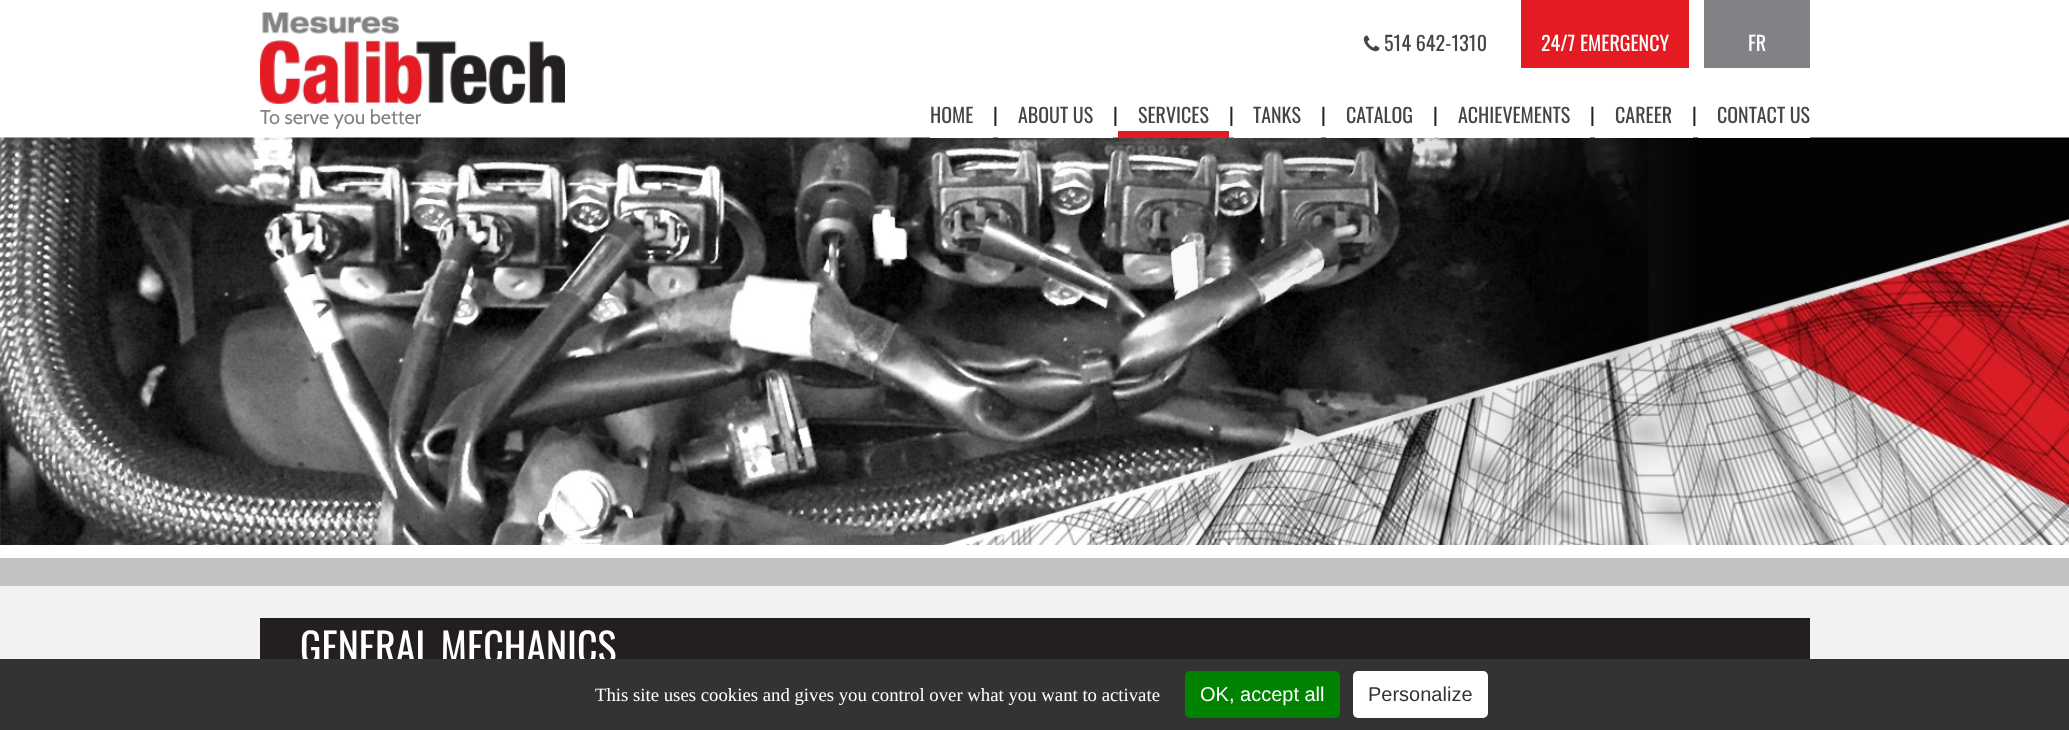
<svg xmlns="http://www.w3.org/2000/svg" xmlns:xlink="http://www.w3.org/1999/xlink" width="2069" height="730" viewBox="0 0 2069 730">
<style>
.cls-1{font:20px Oswald;fill:#444545}
.cls-2{font:20px Oswald;fill:#ffffff}
.cls-3{font:20px Cabin;fill:#818285}
.cls-4{font:20px Oswald;fill:#222222}
.cls-5{font:40px Oswald;fill:#ffffff}
.cls-6{font:18.75px Liberation Serif;fill:#ffffff}
.cls-7{font:20px Liberation Sans;fill:#ffffff}
.cls-8{font:20px Liberation Sans;fill:#333333}
</style>
<rect width="100%" height="100%" fill="#ffffff"/>
<image xlink:href="image0.png" x="1363" y="35" width="17" height="17"/>
<rect fill="#e51b24" x="1521" y="0" width="168" height="68"/>
<rect fill="#818285" x="1704" y="0" width="106" height="68"/>
<image xlink:href="image1.png" x="260" y="12" width="305" height="92"/>
<image xlink:href="image2.png" x="0" y="137" width="2069" height="408"/>
<rect fill="#ffffff" x="930" y="137" width="63" height="1"/>
<rect fill="#ffffff" x="998" y="137" width="115" height="1"/>
<rect fill="#e51b24" x="1118" y="131" width="111" height="7"/>
<rect fill="#ffffff" x="1234" y="137" width="87" height="1"/>
<rect fill="#ffffff" x="1326" y="137" width="108" height="1"/>
<rect fill="#ffffff" x="1438" y="137" width="152" height="1"/>
<rect fill="#ffffff" x="1595" y="137" width="98" height="1"/>
<rect fill="#ffffff" x="1698" y="137" width="112" height="1"/>
<rect fill="#f2f2f3" x="0" y="586" width="2069" height="73"/>
<rect fill="#c2c2c2" x="0" y="558" width="2069" height="28"/>
<rect fill="#231f20" x="260" y="618" width="1550" height="41"/>
<text class="cls-1" x="1384" y="51">514 642-1310</text>
<text class="cls-2" x="1541" y="51">24/7 EMERGENCY</text>
<text class="cls-2" x="1748" y="51">FR</text>
<text class="cls-3" x="260" y="124">To serve you better</text>
<text class="cls-1" x="930" y="123">HOME</text>
<text class="cls-4" x="993" y="123">|</text>
<text class="cls-1" x="1018" y="123">ABOUT US</text>
<text class="cls-4" x="1113" y="123">|</text>
<text class="cls-1" x="1138" y="123">SERVICES</text>
<text class="cls-4" x="1229" y="123">|</text>
<text class="cls-1" x="1253" y="123">TANKS</text>
<text class="cls-4" x="1321" y="123">|</text>
<text class="cls-1" x="1346" y="123">CATALOG</text>
<text class="cls-4" x="1433" y="123">|</text>
<text class="cls-1" x="1458" y="123">ACHIEVEMENTS</text>
<text class="cls-4" x="1590" y="123">|</text>
<text class="cls-1" x="1615" y="123">CAREER</text>
<text class="cls-4" x="1692" y="123">|</text>
<text class="cls-1" x="1717" y="123">CONTACT US</text>
<text class="cls-5" x="300" y="663">GENERAL MECHANICS</text>
<rect fill="#333333" x="0" y="659" width="2069" height="71"/>
<text class="cls-6" x="595" y="701">This site uses cookies and gives you control over what you want to activate</text>
<rect fill="#008300" x="1185" y="671" width="155" height="47" rx="5"/>
<text class="cls-7" x="1200" y="701">OK, accept all</text>
<rect fill="#ffffff" x="1353" y="671" width="135" height="47" rx="5"/>
<text class="cls-8" x="1368" y="701">Personalize</text>
</svg>
